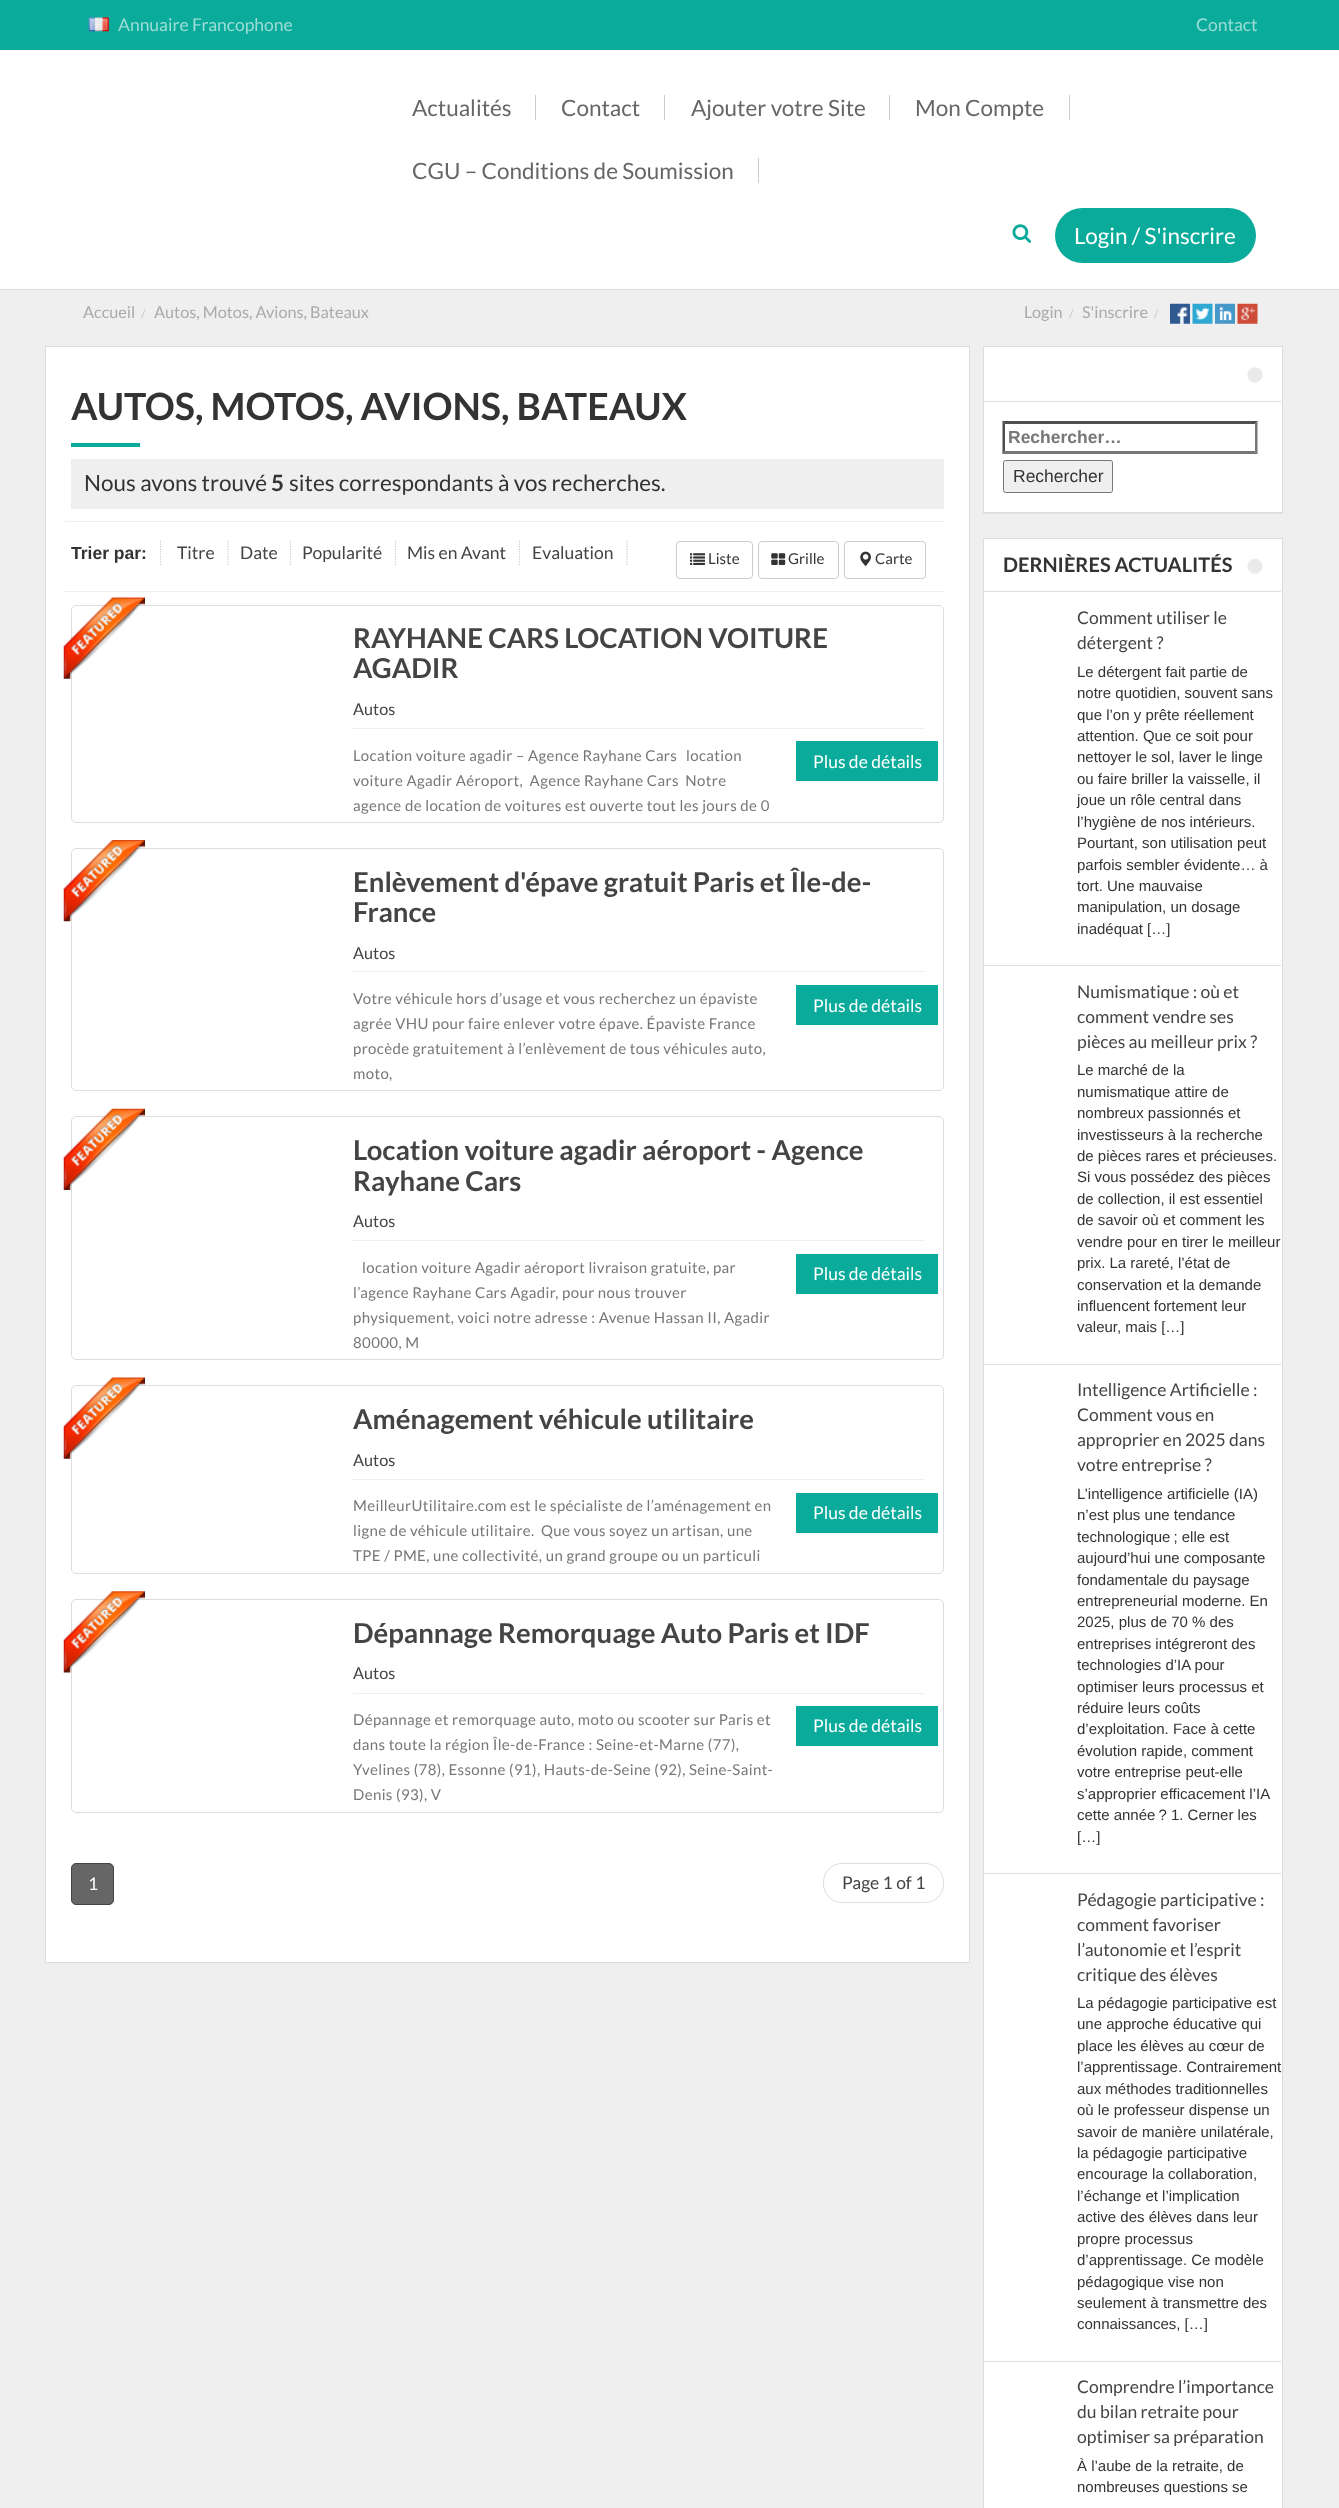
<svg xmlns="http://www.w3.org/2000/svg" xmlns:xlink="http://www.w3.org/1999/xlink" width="1339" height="2508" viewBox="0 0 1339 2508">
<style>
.cls-1{font:17.5px Lato;fill:#9dddd7}
.cls-2{font:22.5px Lato;fill:#666666}
.cls-3{font:22.5px Lato;fill:#ffffff}
.cls-4{font:16.25px Lato;fill:#aaaaaa}
.cls-5{font:12px Lato;fill:#cccccc}
.cls-6{font:bold 37.5px Lato;fill:#333333}
.cls-7{font:22.5px Lato;fill:#333333}
.cls-8{font:bold 22.5px Lato;fill:#333333}
.cls-9{font:bold 17.5px Liberation Sans;fill:#333333}
.cls-10{font:17.5px Lato;fill:#444444}
.cls-11{font:15px Lato;fill:#333333}
.cls-12{font:bold 27.5px Lato;fill:#444444}
.cls-13{font:16.25px Lato;fill:#444444}
.cls-14{font:15px Lato;letter-spacing:0.38px;fill:#777777}
.cls-15{font:17.5px Lato;fill:#ffffff}
.cls-16{font:bold 17.5px Liberation Sans;fill:#777777}
.cls-17{font:17.5px Liberation Sans;fill:#333333}
.cls-18{font:bold 20px Lato;fill:#333333}
.cls-19{font:15px Liberation Sans;fill:#333333}
</style>
<rect width="100%" height="100%" fill="#ffffff"/>
<rect fill="#0aab9a" x="0" y="0" width="1339" height="50"/>
<image xlink:href="image0.png" x="88" y="17" width="21" height="15"/>
<rect fill="#dddddd" x="0" y="289" width="1339" height="1"/>
<rect fill="#cccccc" x="535" y="95" width="1" height="25"/>
<rect fill="#cccccc" x="664" y="95" width="1" height="25"/>
<rect fill="#cccccc" x="889" y="95" width="1" height="25"/>
<rect fill="#cccccc" x="1069" y="95" width="1" height="25"/>
<rect fill="#cccccc" x="758" y="158" width="1" height="25"/>
<image xlink:href="image1.png" x="1012" y="224" width="20" height="19"/>
<rect fill="#0aab9a" x="1055" y="208" width="201" height="55" rx="27.5"/>
<rect fill="#efefef" x="0" y="290" width="1339" height="2218"/>
<image xlink:href="image2.png" x="1170" y="303" width="20" height="21"/>
<image xlink:href="image3.png" x="1192" y="303" width="21" height="21"/>
<image xlink:href="image4.png" x="1215" y="303" width="20" height="21"/>
<image xlink:href="image5.png" x="1237" y="303" width="21" height="21"/>
<rect fill="#ffffff" stroke="#dddddd" x="45.5" y="346.5" width="924" height="1616"/>
<rect fill="#0aab9a" x="71" y="443" width="69" height="4"/>
<rect fill="#efefef" x="71" y="459" width="873" height="50"/>
<rect fill="#efefef" x="65" y="521" width="879" height="1"/>
<rect fill="#efefef" x="65" y="591" width="879" height="1"/>
<path fill="none" stroke="#cccccc" stroke-width="1.2" stroke-dasharray="1.25 1.25" d="M160.5 541V566"/>
<path fill="none" stroke="#cccccc" stroke-width="1.2" stroke-dasharray="1.25 1.25" d="M228 541V566"/>
<path fill="none" stroke="#cccccc" stroke-width="1.2" stroke-dasharray="1.25 1.25" d="M290.5 541V566"/>
<path fill="none" stroke="#cccccc" stroke-width="1.2" stroke-dasharray="1.25 1.25" d="M395.5 541V566"/>
<path fill="none" stroke="#cccccc" stroke-width="1.2" stroke-dasharray="1.25 1.25" d="M519.5 541V566"/>
<path fill="none" stroke="#cccccc" stroke-width="1.2" stroke-dasharray="1.25 1.25" d="M627 541V566"/>
<rect fill="none" stroke="#cccccc" x="676.5" y="541.5" width="76" height="37" rx="3.5"/>
<image xlink:href="image6.png" x="690" y="553" width="15" height="12"/>
<rect fill="none" stroke="#cccccc" x="758.5" y="541.5" width="80" height="37" rx="3.5"/>
<image xlink:href="image7.png" x="771" y="553" width="15" height="12"/>
<rect fill="none" stroke="#cccccc" x="844.5" y="541.5" width="81" height="37" rx="3.5"/>
<image xlink:href="image8.png" x="860" y="551" width="11" height="16"/>
<rect fill="none" stroke="#dddddd" x="71.5" y="605.5" width="872" height="217" rx="4.5"/>
<image xlink:href="image9.png" x="63" y="597" width="82" height="82"/>
<rect fill="#efefef" x="353" y="728" width="572" height="1"/>
<rect fill="#0aab9a" x="796" y="741" width="142" height="40"/>
<rect fill="none" stroke="#dddddd" x="71.5" y="848.5" width="872" height="242" rx="4.5"/>
<image xlink:href="image10.png" x="63" y="840" width="82" height="82"/>
<rect fill="#efefef" x="353" y="971" width="572" height="1"/>
<rect fill="#0aab9a" x="796" y="985" width="142" height="40"/>
<rect fill="none" stroke="#dddddd" x="71.5" y="1116.5" width="872" height="243" rx="4.5"/>
<image xlink:href="image11.png" x="63" y="1108" width="82" height="82"/>
<rect fill="#efefef" x="353" y="1240" width="572" height="1"/>
<rect fill="#0aab9a" x="796" y="1254" width="142" height="40"/>
<rect fill="none" stroke="#dddddd" x="71.5" y="1385.5" width="872" height="188" rx="4.5"/>
<image xlink:href="image9.png" x="63" y="1377" width="82" height="82"/>
<rect fill="#efefef" x="353" y="1479" width="572" height="1"/>
<rect fill="#0aab9a" x="796" y="1493" width="142" height="40"/>
<rect fill="none" stroke="#dddddd" x="71.5" y="1599.5" width="872" height="213" rx="4.5"/>
<image xlink:href="image12.png" x="63" y="1591" width="82" height="82"/>
<rect fill="#efefef" x="353" y="1693" width="572" height="1"/>
<rect fill="#0aab9a" x="796" y="1706" width="142" height="40"/>
<rect fill="#666666" stroke="#444444" x="71.5" y="1863.5" width="42" height="41" rx="4.5"/>
<rect fill="none" stroke="#dddddd" x="823.5" y="1863.5" width="120" height="39" rx="18.5"/>
<rect fill="#000000" fill-opacity="0.05" filter="blur(0.5px)" x="983" y="348" width="300" height="166"/>
<rect fill="#ffffff" stroke="#dddddd" x="983.5" y="346.5" width="299" height="166"/>
<rect fill="#dddddd" x="984" y="401" width="297" height="1"/>
<path fill="#eaeaea" d="M1261.5 371C1266.5 379.5 1253.5 387.5 1248.5 379C1243.5 370.5 1256.5 362.5 1261.5 371Z"/>
<path fill="#4f4f4f" d="M1002 421H1258L1255 424H1005Z"/>
<path fill="#767676" d="M1257.5 421V454L1255 451V424Z"/>
<path fill="#767676" d="M1258 454H1002L1005 451H1255Z"/>
<path fill="#4f4f4f" d="M1002.5 454V421L1005 424V451Z"/>
<rect fill="#efefef" stroke="#767676" x="1003.5" y="460.5" width="109" height="32" rx="2"/>
<rect fill="#ffffff" stroke="#dddddd" x="983.5" y="538.5" width="299" height="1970"/>
<rect fill="#dddddd" x="984" y="591" width="297" height="1"/>
<path fill="#eaeaea" d="M1261.5 562.5C1266.5 571 1253.5 578.5 1248.5 570C1243.5 561.5 1256.5 554 1261.5 562.5Z"/>
<rect fill="#dddddd" x="984" y="965" width="297" height="1"/>
<rect fill="#dddddd" x="984" y="1364" width="297" height="1"/>
<rect fill="#dddddd" x="984" y="1873" width="297" height="1"/>
<rect fill="#dddddd" x="984" y="2361" width="297" height="1"/>
<text class="cls-1" x="118" y="31">Annuaire Francophone</text>
<text class="cls-1" x="1196" y="31">Contact</text>
<text class="cls-2" x="412" y="116">Actualités</text>
<text class="cls-2" x="561" y="116">Contact</text>
<text class="cls-2" x="691" y="116">Ajouter votre Site</text>
<text class="cls-2" x="915" y="116">Mon Compte</text>
<text class="cls-2" x="412" y="179">CGU – Conditions de Soumission</text>
<text class="cls-3" x="1074" y="244">Login / S'inscrire</text>
<text class="cls-4" x="83" y="318">Accueil</text>
<text class="cls-5" x="141" y="318">/</text>
<text class="cls-4" x="154" y="318">Autos, Motos, Avions, Bateaux</text>
<text class="cls-4" x="1024" y="318">Login</text>
<text class="cls-5" x="1069" y="318">/</text>
<text class="cls-4" x="1082" y="318">S'inscrire</text>
<text class="cls-5" x="1154" y="318">/</text>
<text class="cls-6" x="71" y="420">AUTOS, MOTOS, AVIONS, BATEAUX</text>
<text class="cls-7" x="84" y="491">Nous avons trouvé</text>
<text class="cls-8" x="271" y="491">5</text>
<text class="cls-7" x="289" y="491">sites correspondants à vos recherches.</text>
<text class="cls-9" x="71" y="559">Trier par:</text>
<text class="cls-10" x="177" y="559">Titre</text>
<text class="cls-10" x="240" y="559">Date</text>
<text class="cls-10" x="302" y="559">Popularité</text>
<text class="cls-10" x="407" y="559">Mis en Avant</text>
<text class="cls-10" x="532" y="559">Evaluation</text>
<text class="cls-11" x="708" y="564">Liste</text>
<text class="cls-11" x="788" y="564">Grille</text>
<text class="cls-11" x="875" y="564">Carte</text>
<text class="cls-12"><tspan x="353" y="648">RAYHANE CARS LOCATION VOITURE</tspan><tspan x="353" y="678">AGADIR</tspan></text>
<text class="cls-13" x="353" y="715">Autos</text>
<text class="cls-14" x="353" y="761">Location voiture agadir – Agence Rayhane Cars</text>
<text class="cls-14" x="686" y="761">location</text>
<text class="cls-14" xml:space="preserve"><tspan x="353" y="786">voiture Agadir Aéroport,  Agence Rayhane Cars  Notre</tspan><tspan x="353" y="811">agence de location de voitures est ouverte tout les jours de 0</tspan></text>
<text class="cls-15" x="813" y="768">Plus de détails</text>
<text class="cls-12"><tspan x="353" y="892">Enlèvement d'épave gratuit Paris et Île-de-</tspan><tspan x="353" y="922">France</tspan></text>
<text class="cls-13" x="353" y="959">Autos</text>
<text class="cls-14"><tspan x="353" y="1004">Votre véhicule hors d’usage et vous recherchez un épaviste</tspan><tspan x="353" y="1029">agrée VHU pour faire enlever votre épave. Épaviste France</tspan><tspan x="353" y="1054">procède gratuitement à l’enlèvement de tous véhicules auto,</tspan><tspan x="353" y="1079">moto,</tspan></text>
<text class="cls-15" x="813" y="1012">Plus de détails</text>
<text class="cls-12"><tspan x="353" y="1160">Location voiture agadir aéroport - Agence</tspan><tspan x="353" y="1191">Rayhane Cars</tspan></text>
<text class="cls-13" x="353" y="1227">Autos</text>
<text class="cls-14" x="362" y="1273">location voiture Agadir aéroport livraison gratuite, par</text>
<text class="cls-14"><tspan x="353" y="1298">l’agence Rayhane Cars Agadir, pour nous trouver</tspan><tspan x="353" y="1323">physiquement, voici notre adresse : Avenue Hassan II, Agadir</tspan><tspan x="353" y="1348">80000, M</tspan></text>
<text class="cls-15" x="813" y="1280">Plus de détails</text>
<text class="cls-12" x="353" y="1429">Aménagement véhicule utilitaire</text>
<text class="cls-13" x="353" y="1466">Autos</text>
<text class="cls-14"><tspan x="353" y="1511">MeilleurUtilitaire.com est le spécialiste de l’aménagement en</tspan><tspan x="353" y="1536">ligne de véhicule utilitaire.</tspan></text>
<text class="cls-14" x="541" y="1536">Que vous soyez un artisan, une</text>
<text class="cls-14" x="353" y="1561">TPE / PME, une collectivité, un grand groupe ou un particuli</text>
<text class="cls-15" x="813" y="1519">Plus de détails</text>
<text class="cls-12" x="353" y="1643">Dépannage Remorquage Auto Paris et IDF</text>
<text class="cls-13" x="353" y="1679">Autos</text>
<text class="cls-14"><tspan x="353" y="1725">Dépannage et remorquage auto, moto ou scooter sur Paris et</tspan><tspan x="353" y="1750">dans toute la région Île-de-France : Seine-et-Marne (77),</tspan><tspan x="353" y="1775">Yvelines (78), Essonne (91), Hauts-de-Seine (92), Seine-Saint-</tspan><tspan x="353" y="1800">Denis (93), V</tspan></text>
<text class="cls-15" x="813" y="1732">Plus de détails</text>
<text class="cls-15" x="88" y="1890">1</text>
<text class="cls-10" x="842" y="1889">Page 1 of 1</text>
<text class="cls-16" x="1008" y="443">Rechercher…</text>
<text class="cls-17" x="1013" y="482">Rechercher</text>
<text class="cls-18" x="1003" y="572">DERNIÈRES ACTUALITÉS</text>
<text class="cls-10"><tspan x="1077" y="624">Comment utiliser le</tspan><tspan x="1077" y="649">détergent ?</tspan></text>
<text class="cls-19"><tspan x="1077" y="677">Le détergent fait partie de</tspan><tspan x="1077" y="698">notre quotidien, souvent sans</tspan><tspan x="1077" y="720">que l’on y prête réellement</tspan><tspan x="1077" y="741">attention. Que ce soit pour</tspan><tspan x="1077" y="762">nettoyer le sol, laver le linge</tspan><tspan x="1077" y="784">ou faire briller la vaisselle, il</tspan><tspan x="1077" y="805">joue un rôle central dans</tspan><tspan x="1077" y="827">l’hygiène de nos intérieurs.</tspan><tspan x="1077" y="848">Pourtant, son utilisation peut</tspan><tspan x="1077" y="870">parfois sembler évidente… à</tspan><tspan x="1077" y="891">tort. Une mauvaise</tspan><tspan x="1077" y="912">manipulation, un dosage</tspan><tspan x="1077" y="934">inadéquat […]</tspan></text>
<text class="cls-10"><tspan x="1077" y="998">Numismatique : où et</tspan><tspan x="1077" y="1023">comment vendre ses</tspan><tspan x="1077" y="1048">pièces au meilleur prix ?</tspan></text>
<text class="cls-19"><tspan x="1077" y="1075">Le marché de la</tspan><tspan x="1077" y="1097">numismatique attire de</tspan><tspan x="1077" y="1118">nombreux passionnés et</tspan><tspan x="1077" y="1140">investisseurs à la recherche</tspan><tspan x="1077" y="1161">de pièces rares et précieuses.</tspan><tspan x="1077" y="1182">Si vous possédez des pièces</tspan><tspan x="1077" y="1204">de collection, il est essentiel</tspan><tspan x="1077" y="1225">de savoir où et comment les</tspan><tspan x="1077" y="1247">vendre pour en tirer le meilleur</tspan><tspan x="1077" y="1268">prix. La rareté, l’état de</tspan><tspan x="1077" y="1290">conservation et la demande</tspan><tspan x="1077" y="1311">influencent fortement leur</tspan><tspan x="1077" y="1332">valeur, mais […]</tspan></text>
<text class="cls-10"><tspan x="1077" y="1396">Intelligence Artificielle :</tspan><tspan x="1077" y="1421">Comment vous en</tspan><tspan x="1077" y="1446">approprier en 2025 dans</tspan><tspan x="1077" y="1471">votre entreprise ?</tspan></text>
<text class="cls-19"><tspan x="1077" y="1499">L’intelligence artificielle (IA)</tspan><tspan x="1077" y="1520">n’est plus une tendance</tspan><tspan x="1077" y="1542">technologique ; elle est</tspan><tspan x="1077" y="1563">aujourd’hui une composante</tspan><tspan x="1077" y="1585">fondamentale du paysage</tspan><tspan x="1077" y="1606">entrepreneurial moderne. En</tspan><tspan x="1077" y="1627">2025, plus de 70 % des</tspan><tspan x="1077" y="1649">entreprises intégreront des</tspan><tspan x="1077" y="1670">technologies d’IA pour</tspan><tspan x="1077" y="1692">optimiser leurs processus et</tspan><tspan x="1077" y="1713">réduire leurs coûts</tspan><tspan x="1077" y="1734">d’exploitation. Face à cette</tspan><tspan x="1077" y="1756">évolution rapide, comment</tspan><tspan x="1077" y="1777">votre entreprise peut-elle</tspan><tspan x="1077" y="1799">s’approprier efficacement l’IA</tspan><tspan x="1077" y="1820">cette année ? 1. Cerner les</tspan><tspan x="1077" y="1842">[…]</tspan></text>
<text class="cls-10"><tspan x="1077" y="1906">Pédagogie participative :</tspan><tspan x="1077" y="1931">comment favoriser</tspan><tspan x="1077" y="1956">l’autonomie et l’esprit</tspan><tspan x="1077" y="1981">critique des élèves</tspan></text>
<text class="cls-19"><tspan x="1077" y="2008">La pédagogie participative est</tspan><tspan x="1077" y="2029">une approche éducative qui</tspan><tspan x="1077" y="2051">place les élèves au cœur de</tspan><tspan x="1077" y="2072">l’apprentissage. Contrairement</tspan><tspan x="1077" y="2094">aux méthodes traditionnelles</tspan><tspan x="1077" y="2115">où le professeur dispense un</tspan><tspan x="1077" y="2137">savoir de manière unilatérale,</tspan><tspan x="1077" y="2158">la pédagogie participative</tspan><tspan x="1077" y="2179">encourage la collaboration,</tspan><tspan x="1077" y="2201">l’échange et l’implication</tspan><tspan x="1077" y="2222">active des élèves dans leur</tspan><tspan x="1077" y="2244">propre processus</tspan><tspan x="1077" y="2265">d’apprentissage. Ce modèle</tspan><tspan x="1077" y="2287">pédagogique vise non</tspan><tspan x="1077" y="2308">seulement à transmettre des</tspan><tspan x="1077" y="2329">connaissances, […]</tspan></text>
<text class="cls-10"><tspan x="1077" y="2393">Comprendre l’importance</tspan><tspan x="1077" y="2418">du bilan retraite pour</tspan><tspan x="1077" y="2443">optimiser sa préparation</tspan></text>
<text class="cls-19"><tspan x="1077" y="2471">À l’aube de la retraite, de</tspan><tspan x="1077" y="2492">nombreuses questions se</tspan></text>
</svg>
